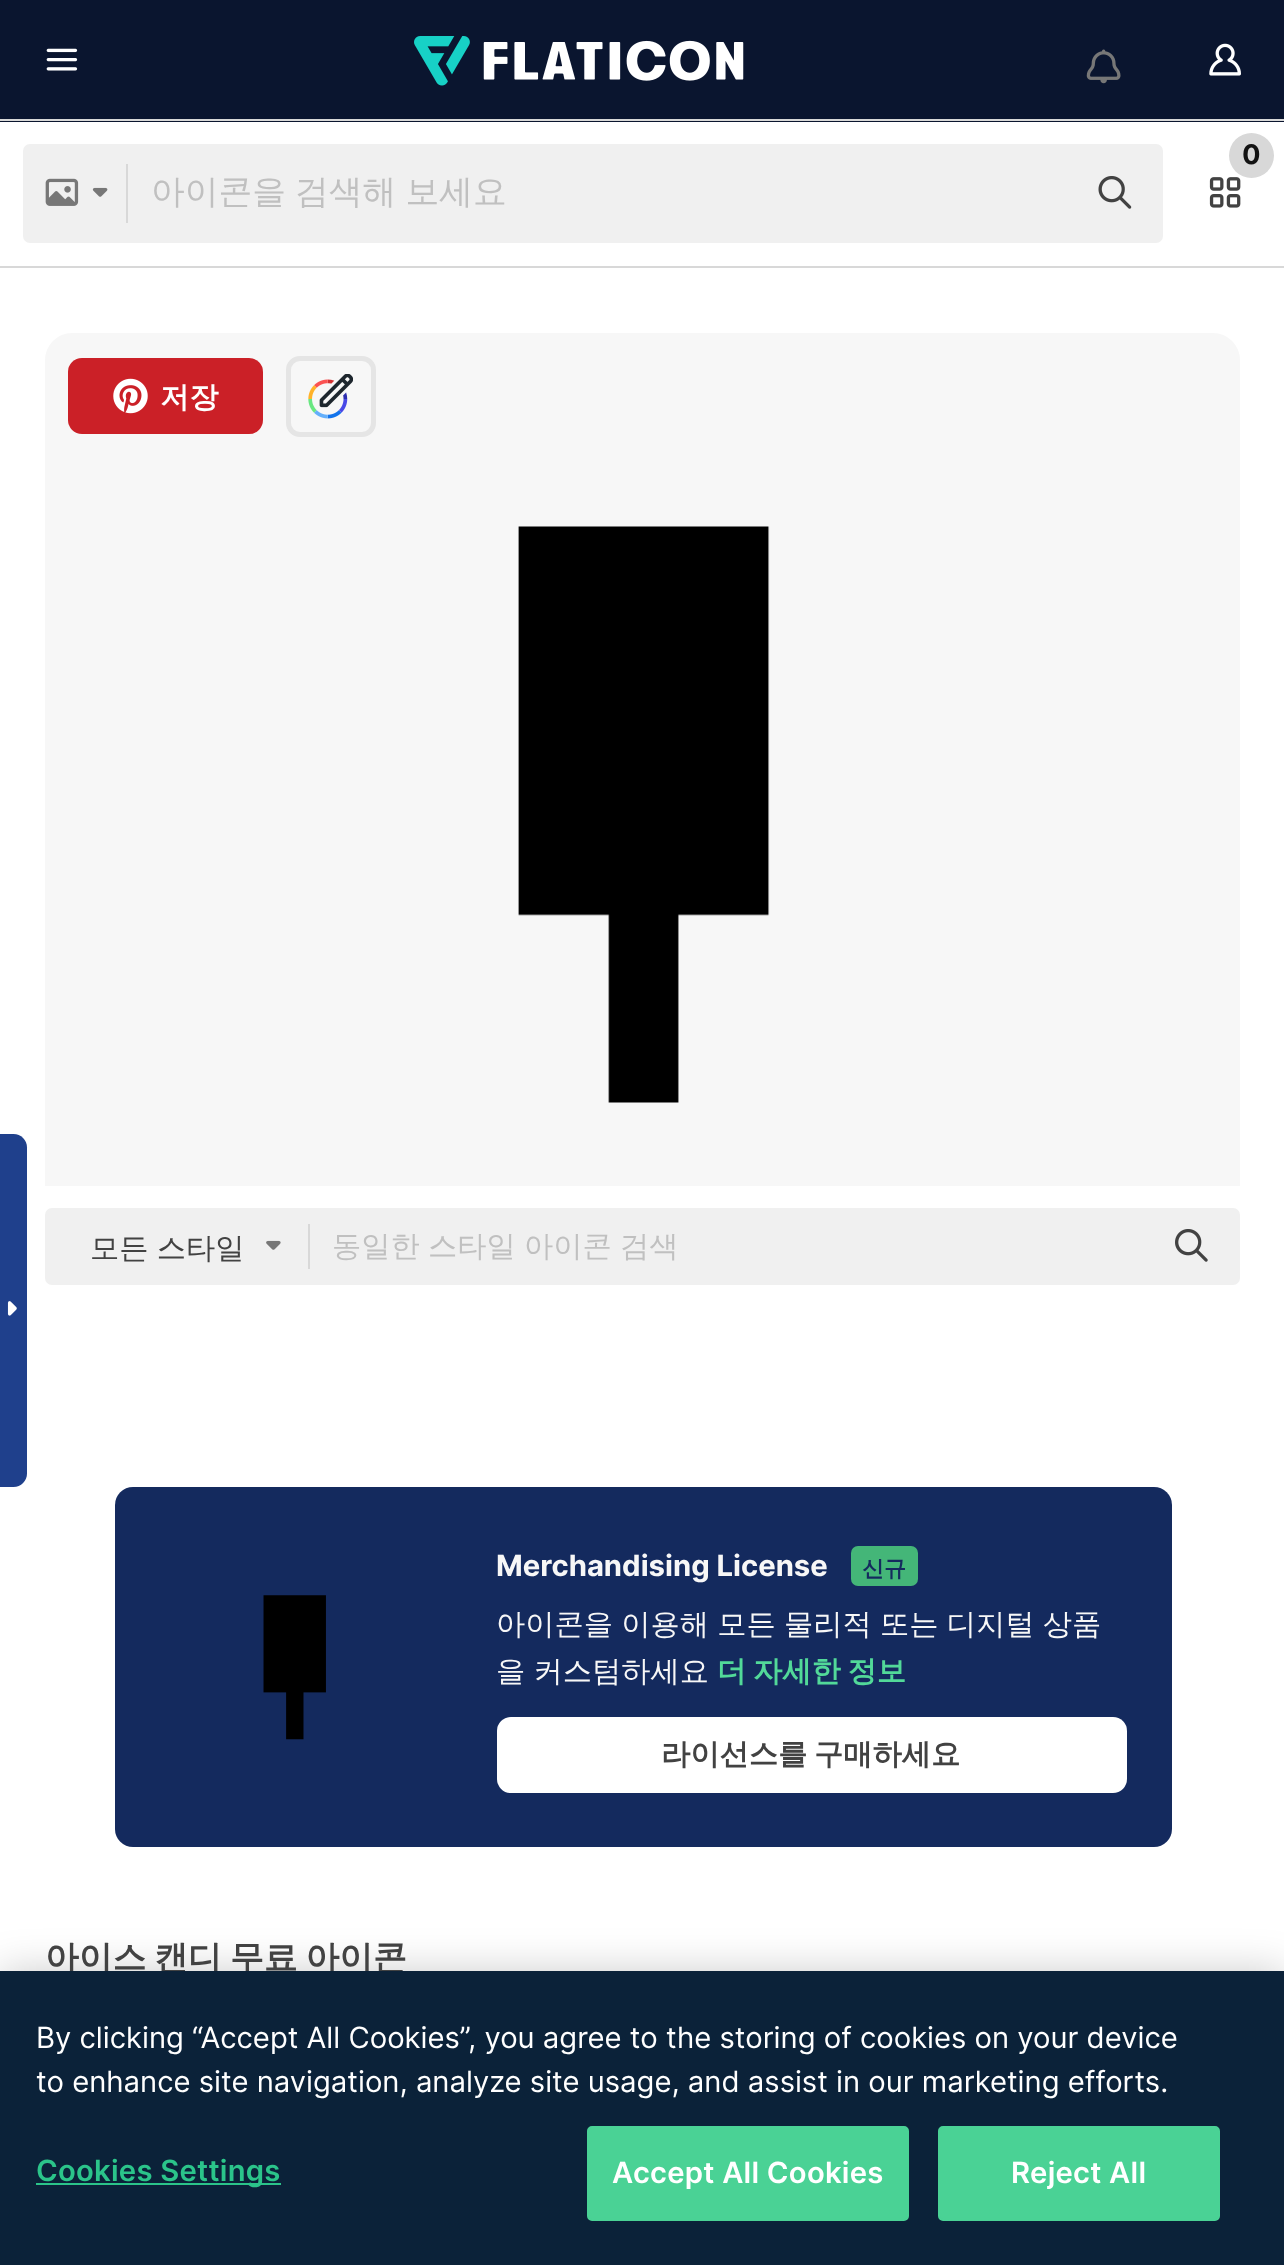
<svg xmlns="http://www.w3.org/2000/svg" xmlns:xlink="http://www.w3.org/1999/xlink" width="1284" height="2265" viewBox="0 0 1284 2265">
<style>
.cls-1{font:bold 27px Inter;fill:#121212}
.cls-2{font:500 33.75px WenQuanYi Zen Hei;fill:#c0c0c0}
.cls-3{font:bold 29.25px WenQuanYi Zen Hei;fill:#ffffff}
.cls-4{font:500 29.25px WenQuanYi Zen Hei;fill:#424242}
.cls-5{font:500 29.25px WenQuanYi Zen Hei;fill:#c0c0c0}
.cls-6{font:bold 29.25px Inter;fill:#f7f7f7}
.cls-7{font:bold 22px WenQuanYi Zen Hei;fill:#142a5e}
.cls-8{font:500 29.25px WenQuanYi Zen Hei;fill:#f7f7f7}
.cls-9{font:bold 29.25px WenQuanYi Zen Hei;fill:#52d999}
.cls-10{font:bold 29.25px WenQuanYi Zen Hei;fill:#424242}
.cls-11{font:bold 33.75px WenQuanYi Zen Hei;fill:#424242}
.cls-12{font:29.25px Inter;fill:#ffffff}
.cls-13{font:600 29.25px Inter;letter-spacing:0.25px;fill:#2bc48a}
.cls-14{font:600 29.25px Inter;letter-spacing:0.25px;fill:#ffffff}
</style>
<rect width="100%" height="100%" fill="#ffffff"/>
<path fill="#1f408c" d="M0 1134H13.5C21 1134 27 1140 27 1147.5V1473.5C27 1481 21 1487 13.5 1487H0Z"/>
<image xlink:href="image0.png" x="7" y="1301" width="10" height="15"/>
<rect fill="#0a152f" x="0" y="0" width="1284" height="122"/>
<image xlink:href="image1.png" x="46" y="48" width="32" height="23"/>
<image xlink:href="image2.png" x="414" y="36" width="330" height="50"/>
<image xlink:href="image3.png" x="1086" y="49" width="35" height="35"/>
<image xlink:href="image4.png" x="1209" y="43" width="32" height="33"/>
<rect fill="none" stroke="#d8d8d8" stroke-width="2" x="-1" y="120" width="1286" height="147"/>
<image xlink:href="image5.png" x="1209" y="177" width="32" height="31"/>
<circle fill="#d8d8d8" cx="1251.5" cy="155.5" r="22.5"/>
<rect fill="#f0f0f0" x="23" y="144" width="1140" height="99" rx="7"/>
<image xlink:href="image6.png" x="45" y="178" width="34" height="28"/>
<image xlink:href="image7.png" x="92" y="187" width="16" height="10"/>
<rect fill="#d8d8d8" x="126" y="164" width="2" height="59"/>
<image xlink:href="image8.png" x="1098" y="176" width="34" height="33"/>
<rect fill="#f7f7f7" x="45" y="333" width="1195" height="974" rx="27"/>
<rect fill="#cb2027" x="68" y="358" width="195" height="76" rx="14"/>
<image xlink:href="image9.png" x="113" y="378" width="35" height="36"/>
<rect fill="none" stroke="#e5e5e5" stroke-width="5" x="288.5" y="358.5" width="85" height="76" rx="11.5"/>
<image xlink:href="image10.png" x="308" y="374" width="45" height="45"/>
<image xlink:href="image11.png" x="518" y="526" width="252" height="577"/>
<rect fill="#ffffff" x="45" y="1186" width="1195" height="121"/>
<rect fill="#f0f0f0" x="45" y="1208" width="1195" height="77" rx="7"/>
<image xlink:href="image12.png" x="266" y="1240" width="15" height="10"/>
<rect fill="#d8d8d8" x="308" y="1224" width="2" height="45"/>
<image xlink:href="image13.png" x="1175" y="1229" width="33" height="33"/>
<rect fill="#142a5e" x="115" y="1487" width="1057" height="360" rx="18"/>
<image xlink:href="image14.png" x="263" y="1595" width="63" height="145"/>
<rect fill="#44b678" x="851" y="1546" width="67" height="40" rx="7"/>
<rect fill="#ffffff" x="497" y="1717" width="630" height="76" rx="14"/>
<rect fill="#000000" fill-opacity="0.2" filter="blur(20px)" x="0" y="1971" width="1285" height="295"/>
<text class="cls-1" x="1242" y="164">0</text>
<text class="cls-2" x="151" y="203" word-spacing="-1">아이콘을 검색해 보세요</text>
<text class="cls-3" x="160" y="407">저장</text>
<text class="cls-4" x="90" y="1258" word-spacing="-0.5">모든 스타일</text>
<text class="cls-5" x="332" y="1256" word-spacing="-0.5">동일한 스타일 아이콘 검색</text>
<text class="cls-6" x="496" y="1576">Merchandising License</text>
<text class="cls-7" x="862" y="1576">신규</text>
<text class="cls-8"><tspan x="496" y="1634" word-spacing="-0.5">아이콘을 이용해 모든 물리적 또는 디지털 상품</tspan><tspan x="496" y="1681" word-spacing="-0.5">을 커스텀하세요</tspan></text>
<text class="cls-9" x="717" y="1681" word-spacing="-2">더 자세한 정보</text>
<text class="cls-10" x="661" y="1764" word-spacing="-2">라이선스를 구매하세요</text>
<text class="cls-11" x="45" y="1969" word-spacing="-2">아이스 캔디 무료 아이콘</text>
<rect fill="#0b2239" x="0" y="1971" width="1284" height="294"/>
<text class="cls-12"><tspan x="36" y="2048">By clicking “Accept All Cookies”, you agree to the storing of cookies on your device</tspan><tspan x="36" y="2092">to enhance site navigation, analyze site usage, and assist in our marketing efforts.</tspan></text>
<rect fill="#2bc48a" x="36" y="2183" width="245" height="2"/>
<text class="cls-13" x="36" y="2181">Cookies Settings</text>
<rect fill="#4ad295" stroke="#4ad295" stroke-width="2" x="588" y="2127" width="320" height="93" rx="4"/>
<text class="cls-14" x="612" y="2183">Accept All Cookies</text>
<rect fill="#4ad295" stroke="#4ad295" stroke-width="2" x="939" y="2127" width="280" height="93" rx="4"/>
<text class="cls-14" x="1011" y="2183">Reject All</text>
</svg>
